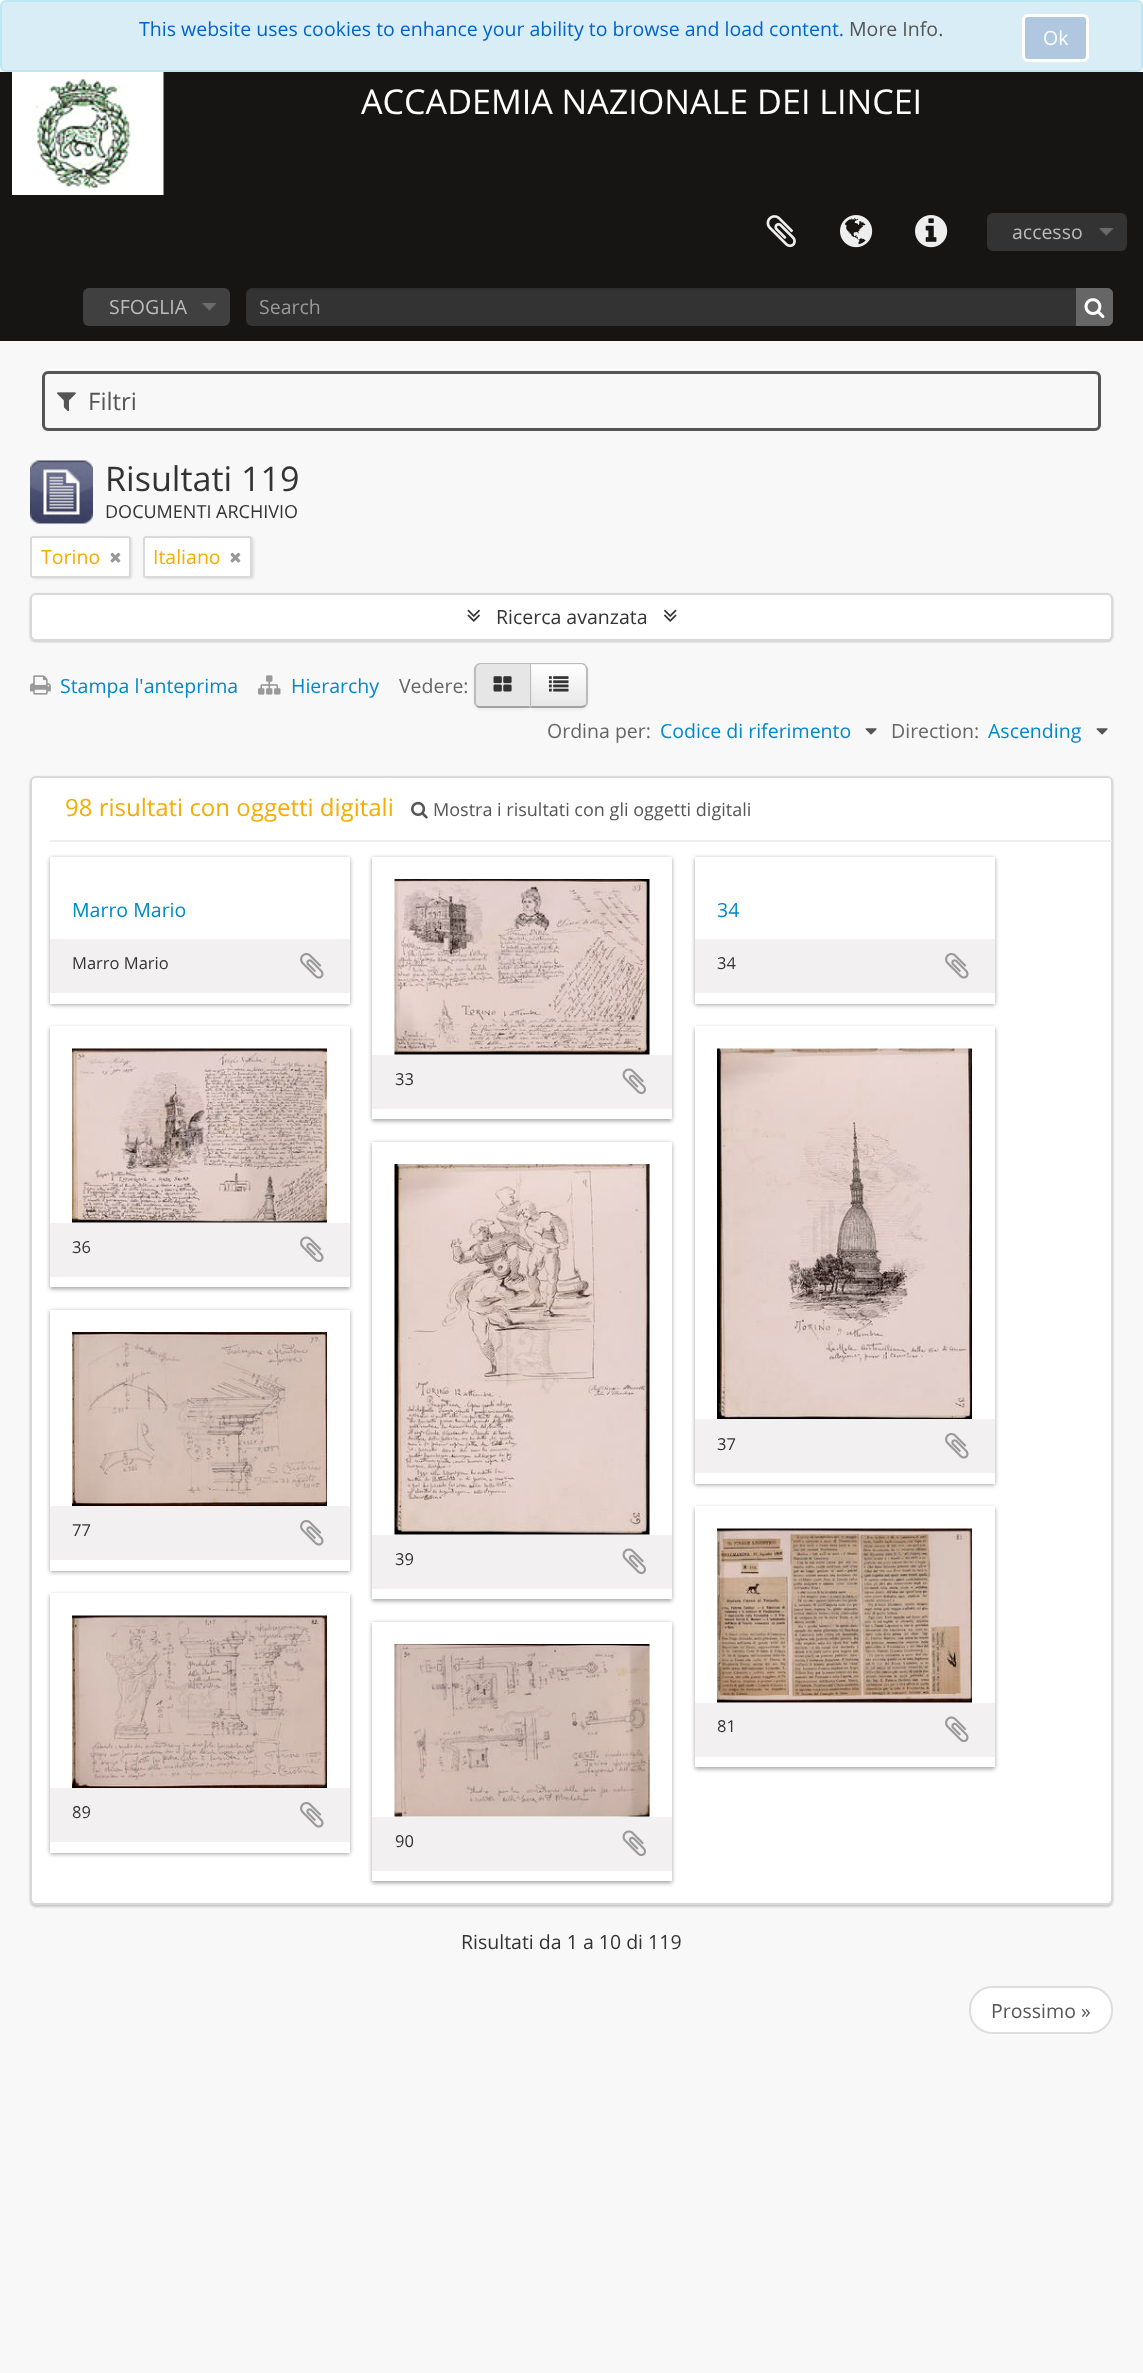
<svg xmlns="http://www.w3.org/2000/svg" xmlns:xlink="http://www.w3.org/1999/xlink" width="1143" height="2373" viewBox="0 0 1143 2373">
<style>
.cls-1{font:19.5px Open Sans;fill:#0064cd}
.cls-2{font:19.5px Open Sans;fill:#555555}
.cls-3{font:19.5px Open Sans;fill:#ffffff}
.cls-4{font:34.1px Open Sans;fill:#ffffff}
.cls-5{font:19.5px Open Sans;fill:#bbbbbb}
.cls-6{font:19.5px Open Sans;fill:#999999}
.cls-7{font:24px Open Sans;fill:#555555}
.cls-8{font:34.1px Open Sans;fill:#333333}
.cls-9{font:18px Open Sans;fill:#333333}
.cls-10{font:19.5px Open Sans;fill:#f6ac00}
.cls-11{font:19.5px Open Sans;fill:#333333}
.cls-12{font:19.5px Open Sans;fill:#0088cc}
.cls-13{font:19.5px Open Sans;fill:#666666}
.cls-14{font:24px Open Sans;fill:#f6ac00}
.cls-15{font:18px Open Sans;fill:#555555}
.cls-16{font:16.5px Open Sans;fill:#333333}
</style>
<defs>
<clipPath id="clip1"><path d="M530 663H582C585.5 663 588 665.5 588 669V702C588 705.5 585.5 708 582 708H530Z"/></clipPath>
<linearGradient id="g1" gradientUnits="userSpaceOnUse" x1="559" y1="665" x2="559" y2="707"><stop offset="0" stop-color="#ffffff"/><stop offset="1" stop-color="#e6e6e6"/></linearGradient>
<clipPath id="clip2"><path d="M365 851H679V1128H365ZM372 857H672V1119H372Z" clip-rule="evenodd"/></clipPath>
<clipPath id="clip3"><path d="M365 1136H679V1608H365ZM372 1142H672V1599H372Z" clip-rule="evenodd"/></clipPath>
<clipPath id="clip4"><path d="M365 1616H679V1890H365ZM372 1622H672V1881H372Z" clip-rule="evenodd"/></clipPath>
</defs>
<rect width="100%" height="100%" fill="#f8f8f8"/>
<rect fill="#d9edf7" stroke="#bce8f1" stroke-width="2" x="1" y="1" width="1141" height="70" rx="5"/>
<rect fill="#afc8df" stroke="#ffffff" stroke-width="3" x="1023.5" y="15.5" width="64" height="45" rx="4.5"/>
<rect fill="#161514" x="0" y="72" width="1143" height="269"/>
<image xlink:href="image0.png" x="12" y="72" width="152" height="123"/>
<image xlink:href="image1.png" x="766" y="215" width="30" height="33"/>
<image xlink:href="image2.png" x="840" y="215" width="33" height="33"/>
<image xlink:href="image3.png" x="915" y="215" width="33" height="33"/>
<rect fill="#333333" x="987" y="213" width="140" height="38" rx="6"/>
<image xlink:href="image4.png" x="1099" y="228" width="15" height="8"/>
<rect fill="#404040" x="83" y="288" width="147" height="38" rx="6"/>
<image xlink:href="image5.png" x="202" y="303" width="15" height="8"/>
<rect fill="#333333" x="246" y="288" width="867" height="38" rx="6"/>
<path fill="#000000" fill-opacity="0.07" d="M252 290H1107C1110 290 1113 292 1113 296C1113 292 1112 288 1107 288H252C247 288 246 292 246 296C246 292 249 290 252 290Z"/>
<path fill="#666666" d="M1076 288H1107C1110.5 288 1113 290.5 1113 294V320C1113 323.5 1110.5 326 1107 326H1076Z"/>
<image xlink:href="image6.png" x="1084" y="298" width="21" height="20"/>
<rect fill="none" stroke="#555555" stroke-width="3" x="43.5" y="372.5" width="1056" height="57" rx="4.5"/>
<image xlink:href="image7.png" x="57" y="392" width="19" height="20"/>
<image xlink:href="image8.png" x="30" y="460" width="63" height="64"/>
<rect fill="#000000" fill-opacity="0.1" filter="blur(1px)" x="32" y="537" width="100" height="42" rx="3"/>
<rect fill="#ffffff" stroke="#d9d9d9" stroke-width="2" x="31" y="537" width="99" height="40" rx="2"/>
<image xlink:href="image9.png" x="110" y="552" width="11" height="11"/>
<rect fill="#000000" fill-opacity="0.1" filter="blur(1px)" x="144" y="537" width="110" height="42" rx="3"/>
<rect fill="#ffffff" stroke="#d9d9d9" stroke-width="2" x="144" y="537" width="107" height="40" rx="2"/>
<image xlink:href="image9.png" x="230" y="552" width="11" height="11"/>
<rect fill="#000000" fill-opacity="0.2" filter="blur(1px)" x="30" y="594" width="1083" height="48" rx="6"/>
<rect fill="#ffffff" stroke="#d9d9d9" stroke-width="2" x="31" y="594" width="1081" height="46" rx="5"/>
<image xlink:href="image10.png" x="467" y="609" width="13" height="13"/>
<image xlink:href="image11.png" x="664" y="609" width="13" height="13"/>
<image xlink:href="image12.png" x="30" y="675" width="21" height="20"/>
<image xlink:href="image13.png" x="258" y="675" width="23" height="20"/>
<rect fill="#000000" fill-opacity="0.05" filter="blur(1.5px)" x="530" y="665" width="58" height="45" rx="6"/>
<path fill="#f5f5f5" d="M530 663H582C585.5 663 588 665.5 588 669V702C588 705.5 585.5 708 582 708H530Z"/>
<g clip-path="url(#clip1)">
<rect fill="url(#g1)" x="531" y="665" width="57" height="42"/>
</g>
<path fill="#ffffff" fill-opacity="0.2" d="M531 666H565C587 666 586 662 586 681V705C587 704 587 703 587 702V670C587 667 585 665 582 665H531Z"/>
<path fill="#bbbbbb" d="M530 663L531 664H582L585 666L586 665C585 664 584 663 582 663Z"/>
<path fill="#bbbbbb" d="M588 702V669C588 668 587 666 586 665L585 666L586 669V702C586 703 586 704 585 705L586 706C587 705 588 704 588 702Z"/>
<path fill="#a2a2a2" d="M530 708H582C584 708 585 707 586 706L585 705L582 706H532Z"/>
<path fill="#bbbbbb" d="M530 664V708L532 706H531V664Z"/>
<rect fill="#000000" fill-opacity="0.05" filter="blur(1.5px)" x="474" y="665" width="57" height="45" rx="6"/>
<path fill="#e6e6e6" d="M480 663H531V708H480C476.5 708 474 705.5 474 702V669C474 665.5 476.5 663 480 663Z"/>
<path fill="#bbbbbb" d="M480 663C478 663 477 664 476 665L477 666L480 664H530L531 663Z"/>
<path fill="#bbbbbb" d="M531 663L530 664V706H529L531 708Z"/>
<path fill="#a2a2a2" d="M531 708L529 706H479L477 705L476 706C477 707 478 708 480 708Z"/>
<path fill="#bbbbbb" d="M474 669V702C474 704 475 705 476 706L477 705C476 704 476 703 476 702V669L477 666L476 665C475 666 474 668 474 669Z"/>
<image xlink:href="image14.png" x="493" y="676" width="19" height="16"/>
<image xlink:href="image15.png" x="549" y="676" width="20" height="16"/>
<image xlink:href="image16.png" x="865" y="728" width="12" height="7"/>
<image xlink:href="image16.png" x="1096" y="728" width="12" height="7"/>
<rect fill="#000000" fill-opacity="0.2" filter="blur(1px)" x="30" y="777" width="1083" height="1130" rx="6"/>
<rect fill="#ffffff" stroke="#d9d9d9" stroke-width="2" x="31" y="777" width="1081" height="1127" rx="5"/>
<rect fill="#eeeeee" x="50" y="840" width="1062" height="2"/>
<image xlink:href="image17.png" x="411" y="801" width="17" height="18"/>
<rect fill="#191919" fill-opacity="0.4" filter="blur(2px)" x="50" y="858" width="300" height="147"/>
<rect fill="#ffffff" x="50" y="857" width="300" height="147"/>
<rect fill="#f2f0f0" x="50" y="939" width="300" height="54"/>
<image xlink:href="image18.png" x="300" y="953" width="24" height="26"/>
<rect fill="#191919" fill-opacity="0.4" filter="blur(2px)" x="695" y="858" width="300" height="147"/>
<rect fill="#ffffff" x="695" y="857" width="300" height="147"/>
<rect fill="#f2f0f0" x="695" y="939" width="300" height="54"/>
<image xlink:href="image18.png" x="945" y="953" width="24" height="26"/>
<g clip-path="url(#clip2)">
<rect fill="#191919" fill-opacity="0.4" filter="blur(2px)" x="372" y="858" width="300" height="263"/>
</g>
<image xlink:href="image19.png" x="394" y="879" width="256" height="176"/>
<rect fill="#f2f0f0" x="372" y="1055" width="300" height="54"/>
<image xlink:href="image20.png" x="622" y="1068" width="24" height="27"/>
<rect fill="#191919" fill-opacity="0.4" filter="blur(2px)" x="50" y="1028" width="300" height="261"/>
<rect fill="#ffffff" x="50" y="1026" width="300" height="261"/>
<image xlink:href="image21.png" x="72" y="1048" width="255" height="175"/>
<rect fill="#f2f0f0" x="50" y="1223" width="300" height="54"/>
<image xlink:href="image22.png" x="300" y="1236" width="24" height="26"/>
<rect fill="#191919" fill-opacity="0.4" filter="blur(2px)" x="695" y="1028" width="300" height="457"/>
<rect fill="#ffffff" x="695" y="1026" width="300" height="458"/>
<image xlink:href="image23.png" x="717" y="1048" width="255" height="371"/>
<rect fill="#f2f0f0" x="695" y="1419" width="300" height="54"/>
<image xlink:href="image18.png" x="945" y="1433" width="24" height="26"/>
<rect fill="#191919" fill-opacity="0.4" filter="blur(2px)" x="50" y="1311" width="300" height="261"/>
<rect fill="#ffffff" x="50" y="1310" width="300" height="261"/>
<image xlink:href="image24.png" x="72" y="1332" width="255" height="174"/>
<rect fill="#f2f0f0" x="50" y="1506" width="300" height="54"/>
<image xlink:href="image18.png" x="300" y="1520" width="24" height="26"/>
<g clip-path="url(#clip3)">
<rect fill="#191919" fill-opacity="0.4" filter="blur(2px)" x="372" y="1143" width="300" height="458"/>
</g>
<image xlink:href="image25.png" x="394" y="1164" width="256" height="371"/>
<rect fill="#f2f0f0" x="372" y="1535" width="300" height="54"/>
<image xlink:href="image20.png" x="622" y="1548" width="24" height="27"/>
<rect fill="#191919" fill-opacity="0.4" filter="blur(2px)" x="695" y="1508" width="300" height="261"/>
<rect fill="#ffffff" x="695" y="1506" width="300" height="261"/>
<image xlink:href="image26.png" x="717" y="1528" width="255" height="175"/>
<rect fill="#f2f0f0" x="695" y="1703" width="300" height="54"/>
<image xlink:href="image22.png" x="945" y="1716" width="24" height="26"/>
<rect fill="#191919" fill-opacity="0.4" filter="blur(2px)" x="50" y="1595" width="300" height="259"/>
<rect fill="#ffffff" x="50" y="1593" width="300" height="260"/>
<image xlink:href="image27.png" x="72" y="1615" width="255" height="173"/>
<rect fill="#f2f0f0" x="50" y="1788" width="300" height="54"/>
<image xlink:href="image18.png" x="300" y="1802" width="24" height="26"/>
<g clip-path="url(#clip4)">
<rect fill="#191919" fill-opacity="0.4" filter="blur(2px)" x="372" y="1623" width="300" height="260"/>
</g>
<image xlink:href="image28.png" x="394" y="1644" width="256" height="173"/>
<rect fill="#f2f0f0" x="372" y="1817" width="300" height="54"/>
<image xlink:href="image20.png" x="622" y="1830" width="24" height="27"/>
<rect fill="#ffffff" stroke="#dddddd" stroke-width="2" x="970" y="1987" width="142" height="46" rx="22"/>
<text class="cls-1" x="139" y="36">This website uses cookies to enhance your ability to browse and load content.</text>
<text class="cls-2" x="849" y="36">More Info.</text>
<text class="cls-3" x="1043" y="45">Ok</text>
<text class="cls-4" x="361" y="114">ACCADEMIA NAZIONALE DEI LINCEI</text>
<text class="cls-5" x="1012" y="239">accesso</text>
<text class="cls-5" x="109" y="314">SFOGLIA</text>
<text class="cls-6" x="259" y="314">Search</text>
<text class="cls-7" x="88" y="410">Filtri</text>
<text class="cls-8" x="105" y="491">Risultati 119</text>
<text class="cls-9" x="105" y="518">DOCUMENTI ARCHIVIO</text>
<text class="cls-10" x="41" y="564">Torino</text>
<text class="cls-10" x="153" y="564">Italiano</text>
<text class="cls-11" x="496" y="624">Ricerca avanzata</text>
<text class="cls-12" x="60" y="693">Stampa l'anteprima</text>
<text class="cls-12" x="291" y="693">Hierarchy</text>
<text class="cls-13" x="399" y="693">Vedere:</text>
<text class="cls-13" x="547" y="738">Ordina per:</text>
<text class="cls-12" x="660" y="738">Codice di riferimento</text>
<text class="cls-13" x="891" y="738">Direction:</text>
<text class="cls-12" x="988" y="738">Ascending</text>
<text class="cls-14" x="65" y="816">98 risultati con oggetti digitali</text>
<text class="cls-15" x="433" y="816">Mostra i risultati con gli oggetti digitali</text>
<text class="cls-12" x="72" y="917">Marro Mario</text>
<text class="cls-16" x="72" y="969">Marro Mario</text>
<text class="cls-12" x="717" y="917">34</text>
<text class="cls-16" x="717" y="969">34</text>
<text class="cls-16" x="395" y="1085">33</text>
<text class="cls-16" x="72" y="1253">36</text>
<text class="cls-16" x="717" y="1450">37</text>
<text class="cls-16" x="72" y="1536">77</text>
<text class="cls-16" x="395" y="1565">39</text>
<text class="cls-16" x="717" y="1732">81</text>
<text class="cls-16" x="72" y="1818">89</text>
<text class="cls-16" x="395" y="1847">90</text>
<text class="cls-11" x="461" y="1949">Risultati da 1 a 10 di 119</text>
<text class="cls-2" x="991" y="2018">Prossimo »</text>
</svg>
